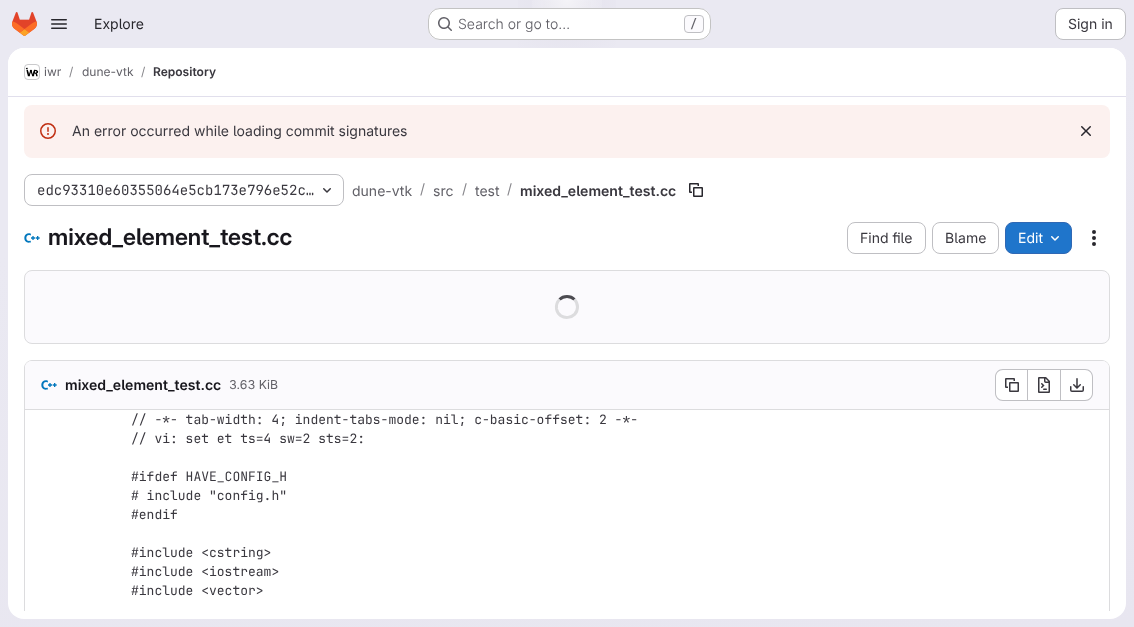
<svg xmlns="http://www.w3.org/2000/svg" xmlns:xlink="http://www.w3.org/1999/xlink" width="1134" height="627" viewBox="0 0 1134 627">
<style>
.cls-1{font:14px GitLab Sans;fill:#28272d}
.cls-2{font:300 14px GitLab Sans;fill:#626168}
.cls-3{font:500 12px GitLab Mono;fill:#626168}
.cls-4{font:14px GitLab Sans;fill:#3a383f}
.cls-5{font:12px GitLab Sans;fill:#626168}
.cls-6{font:12px GitLab Sans;fill:#89888d}
.cls-7{font:600 12px GitLab Sans;fill:#3a383f}
.cls-8{font:14px GitLab Mono;fill:#3a383f}
.cls-9{font:14px GitLab Sans;fill:#626168}
.cls-10{font:14px GitLab Sans;fill:#89888d}
.cls-11{font:600 14px GitLab Sans;fill:#3a383f}
.cls-12{font:600 23px 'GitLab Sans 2';fill:#18171d}
.cls-13{font:14px GitLab Sans;fill:#ffffff}
.cls-14{font:600 14px GitLab Sans;fill:#18171d}
.cls-15{font:12.25px GitLab Sans;fill:#626168}
.cls-16{font:13px GitLab Mono;fill:#3a383f}
</style>
<defs>
<linearGradient id="g1" gradientUnits="userSpaceOnUse" x1="638" y1="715" x2="496" y2="-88"><stop offset="0" stop-color="#e8e6f0"/><stop offset="0.7" stop-color="#eae9f2"/></linearGradient>
<radialGradient id="g2" gradientUnits="userSpaceOnUse" cx="0" cy="0" r="1" gradientTransform="matrix(567 0 0 627 567 0)"><stop offset="0" stop-color="#e4e2ed"/><stop offset="0.12" stop-color="#e4e2ed" stop-opacity="0"/></radialGradient>
<radialGradient id="g3" gradientUnits="userSpaceOnUse" cx="0" cy="0" r="1" gradientTransform="matrix(567 0 0 627 567 0)"><stop offset="0" stop-color="#e4e2ec"/><stop offset="0.09" stop-color="#e4e2ec" stop-opacity="0"/></radialGradient>
<radialGradient id="g4" gradientUnits="userSpaceOnUse" cx="567" cy="0" r="845"><stop offset="0" stop-color="#ffffff" stop-opacity="0.6"/><stop offset="0.05" stop-color="#ffffff" stop-opacity="0"/></radialGradient>
<clipPath id="clip1"><rect x="8" y="97" width="1118" height="514"/></clipPath>
</defs>
<rect width="100%" height="100%" fill="#ffffff"/>
<rect fill="url(#g1)" x="0" y="0" width="1134" height="627"/>
<rect fill="url(#g2)" x="518" y="0" width="98" height="48"/>
<rect fill="url(#g3)" x="543" y="1" width="48" height="23"/>
<rect fill="url(#g4)" x="532" y="0" width="70" height="35"/>
<image xlink:href="image0.png" x="12" y="12" width="25" height="24"/>
<image xlink:href="image1.png" x="51" y="19" width="16" height="10"/>
<rect fill="#ffffff" x="428" y="8" width="283" height="32" rx="12"/>
<rect fill="none" stroke="#050506" stroke-opacity="0.24" x="428.5" y="8.5" width="282" height="31" rx="11.5"/>
<image xlink:href="image2.png" x="438" y="17" width="14" height="14"/>
<rect fill="#fbfafd" stroke="#bfbfc3" x="684.5" y="15.5" width="19" height="17" rx="3.5"/>
<rect fill="#ffffff" stroke="#bfbfc3" x="1055.5" y="8.5" width="70" height="31" rx="7.5"/>
<rect fill="#ffffff" x="8" y="48" width="1118" height="571" rx="16"/>
<path fill="#ffffff" d="M24 48H1110C1119 48 1126 55 1126 64V97H8V64C8 55 15 48 24 48Z"/>
<rect fill="#e1dfec" x="8" y="96" width="1118" height="1"/>
<rect fill="none" stroke="#dcdcde" x="24.5" y="64.5" width="15" height="15" rx="3.5"/>
<image xlink:href="image3.png" x="25" y="67" width="14" height="10"/>
<rect fill="none" stroke="#050506" stroke-opacity="0.08" x="24.5" y="64.5" width="15" height="15" rx="3.5"/>
<rect fill="#fcf1ef" x="24" y="105" width="1086" height="53" rx="8"/>
<image xlink:href="image4.png" x="40" y="123" width="16" height="16"/>
<image xlink:href="image5.png" x="1081" y="126" width="10" height="10"/>
<rect fill="none" stroke="#bfbfc3" x="24.5" y="174.5" width="319" height="31" rx="7.5"/>
<image xlink:href="image6.png" x="323" y="188" width="8" height="5"/>
<image xlink:href="image7.png" x="689" y="183" width="14" height="14"/>
<image xlink:href="image8.png" x="24" y="233" width="16" height="10"/>
<rect fill="none" stroke="#bfbfc3" x="847.5" y="222.5" width="78" height="31" rx="7.5"/>
<rect fill="none" stroke="#bfbfc3" x="932.5" y="222.5" width="66" height="31" rx="7.5"/>
<rect fill="#1f75cb" stroke="#2f68b4" x="1005.5" y="222.5" width="66" height="31" rx="7.5"/>
<image xlink:href="image9.png" x="1051" y="236" width="8" height="5"/>
<image xlink:href="image10.png" x="1092" y="230" width="4" height="16"/>
<rect fill="#fbfafd" stroke="#dcdcde" x="24.5" y="270.5" width="1085" height="73" rx="7.5"/>
<path fill="none" stroke="#4c4b51" stroke-width="3" d="M559.5 299.5C563.5 295.5 570.5 295.5 574.5 299.5"/>
<path fill="none" stroke="#dcdcde" stroke-width="3" d="M574.5 299.5C576.5 301.5 577.5 304 577.5 307C577.5 319.5 559 321.5 556.5 309C556 305.5 557 302 559.5 299.5"/>
<g clip-path="url(#clip1)">
<path fill="#dcdcde" d="M32 360C28 360 24 364 24 368V619H25V368C25 364 28 361 32 361H1102C1106 361 1109 364 1109 368V619H1110V368C1110 364 1106 360 1102 360Z"/>
</g>
<path fill="#fbfafd" d="M32 361H1102C1106 361 1109 364 1109 368V410H25V368C25 364 28 361 32 361Z"/>
<rect fill="#dcdcde" x="25" y="409" width="1084" height="1"/>
<image xlink:href="image11.png" x="41" y="380" width="16" height="10"/>
<path fill="#ffffff" d="M1003 370H1027V400H1003C999 400 996 397 996 393V377C996 373 999 370 1003 370Z"/>
<path fill="#bfbfc3" fill-rule="evenodd" d="M1003 369H1027V401H1003C998.5 401 995 397.5 995 393V377C995 372.5 998.5 369 1003 369ZM1003 370H1027V400H1003C999 400 996 397 996 393V377C996 373 999 370 1003 370Z"/>
<image xlink:href="image12.png" x="1005" y="378" width="14" height="14"/>
<rect fill="#ffffff" x="1028" y="370" width="32" height="30"/>
<rect fill="#bfbfc3" x="1028" y="369" width="32" height="1"/>
<rect fill="#bfbfc3" x="1028" y="400" width="32" height="1"/>
<rect fill="#bfbfc3" x="1027" y="369" width="1" height="32"/>
<image xlink:href="image13.png" x="1038" y="377" width="12" height="16"/>
<path fill="#ffffff" d="M1061 370H1085C1089 370 1092 373 1092 377V393C1092 397 1089 400 1085 400H1061Z"/>
<path fill="#bfbfc3" fill-rule="evenodd" d="M1061 369H1085C1089.5 369 1093 372.5 1093 377V393C1093 397.5 1089.5 401 1085 401H1061ZM1061 370H1085C1089 370 1092 373 1092 377V393C1092 397 1089 400 1085 400H1061Z"/>
<rect fill="#bfbfc3" x="1060" y="369" width="1" height="32"/>
<image xlink:href="image14.png" x="1070" y="378" width="14" height="14"/>
<text class="cls-1" x="94" y="29">Explore</text>
<text class="cls-2" x="458" y="29">Search or go to…</text>
<text class="cls-3" x="690" y="28">/</text>
<text class="cls-4" x="1068" y="29">Sign in</text>
<text class="cls-5" x="44" y="76">iwr</text>
<text class="cls-6" x="69" y="76">/</text>
<text class="cls-5" x="82" y="76">dune-vtk</text>
<text class="cls-6" x="141" y="76">/</text>
<text class="cls-7" x="153" y="76">Repository</text>
<text class="cls-4" x="72" y="136">An error occurred while loading commit signatures</text>
<text class="cls-8" x="37" y="195">edc93310e60355064e5cb173e796e52c…</text>
<text class="cls-9" x="352" y="196">dune-vtk</text>
<text class="cls-10" x="420" y="194">/</text>
<text class="cls-9" x="433" y="196">src</text>
<text class="cls-10" x="462" y="194">/</text>
<text class="cls-9" x="475" y="196">test</text>
<text class="cls-10" x="507" y="194">/</text>
<text class="cls-11" x="520" y="196">mixed_element_test.cc</text>
<text class="cls-12" x="48" y="245">mixed_element_test.cc</text>
<text class="cls-4" x="860" y="243">Find file</text>
<text class="cls-4" x="945" y="243">Blame</text>
<text class="cls-13" x="1018" y="243">Edit</text>
<text class="cls-14" x="65" y="390">mixed_element_test.cc</text>
<text class="cls-15" x="229" y="389">3.63 KiB</text>
<text class="cls-16"><tspan x="131" y="424">// -*- tab-width: 4; indent-tabs-mode: nil; c-basic-offset: 2 -*-</tspan><tspan x="131" y="443">// vi: set et ts=4 sw=2 sts=2:</tspan></text>
<text class="cls-16"><tspan x="131" y="481">#ifdef HAVE_CONFIG_H</tspan><tspan x="131" y="500"># include "config.h"</tspan><tspan x="131" y="519">#endif</tspan></text>
<text class="cls-16"><tspan x="131" y="557">#include &lt;cstring&gt;</tspan><tspan x="131" y="576">#include &lt;iostream&gt;</tspan><tspan x="131" y="595">#include &lt;vector&gt;</tspan></text>
</svg>
